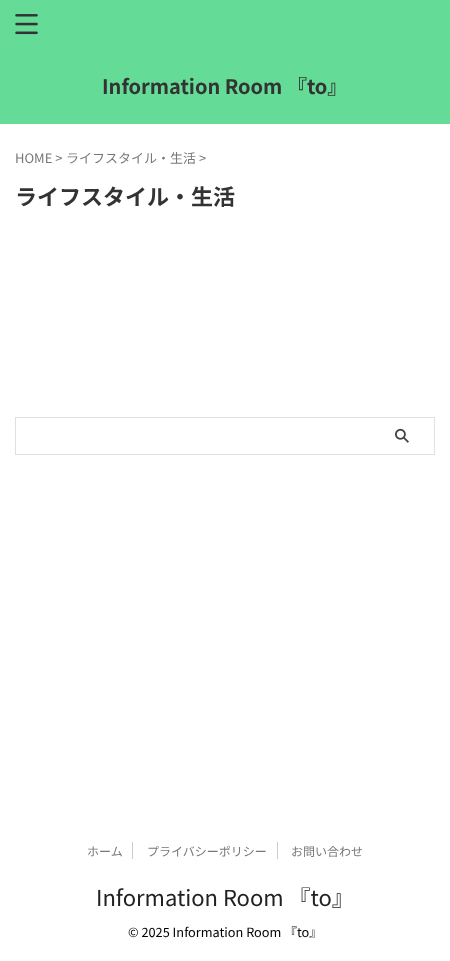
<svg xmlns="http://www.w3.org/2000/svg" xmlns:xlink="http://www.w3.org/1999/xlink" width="450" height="961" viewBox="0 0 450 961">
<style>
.cls-1{font:bold 20px Noto Sans JP;fill:#333333}
.cls-2{font:13px Noto Sans JP;fill:#777777}
.cls-3{font:bold 22px Noto Sans JP;fill:#333333}
.cls-4{font:12px Noto Sans JP;fill:#777777}
.cls-5{font:22px Noto Sans JP;fill:#212121}
.cls-6{font:12.75px Noto Sans JP;fill:#000000}
</style>
<rect width="100%" height="100%" fill="#ffffff"/>
<rect fill="#64db96" x="0" y="0" width="450" height="124"/>
<image xlink:href="image0.png" x="15" y="14" width="23" height="21"/>
<rect fill="none" stroke="#e0e0e0" x="15.5" y="417.5" width="419" height="37"/>
<image xlink:href="image1.png" x="395" y="428" width="14" height="15"/>
<rect fill="#cccccc" x="132" y="842" width="1" height="17"/>
<rect fill="#cccccc" x="277" y="842" width="1" height="17"/>
<text class="cls-1" x="102" y="94">Information Room 『to』</text>
<text class="cls-2" x="15" y="163">HOME &gt;</text>
<text class="cls-2" x="66" y="163">ライフスタイル・生活 &gt;</text>
<text class="cls-3" x="15" y="205">ライフスタイル・生活</text>
<text class="cls-4" x="87" y="856">ホーム</text>
<text class="cls-4" x="147" y="856">プライバシーポリシー</text>
<text class="cls-4" x="291" y="856">お問い合わせ</text>
<text class="cls-5" x="96" y="906">Information Room 『to』</text>
<text class="cls-6" x="128" y="937">© 2025 Information Room 『to』</text>
</svg>
